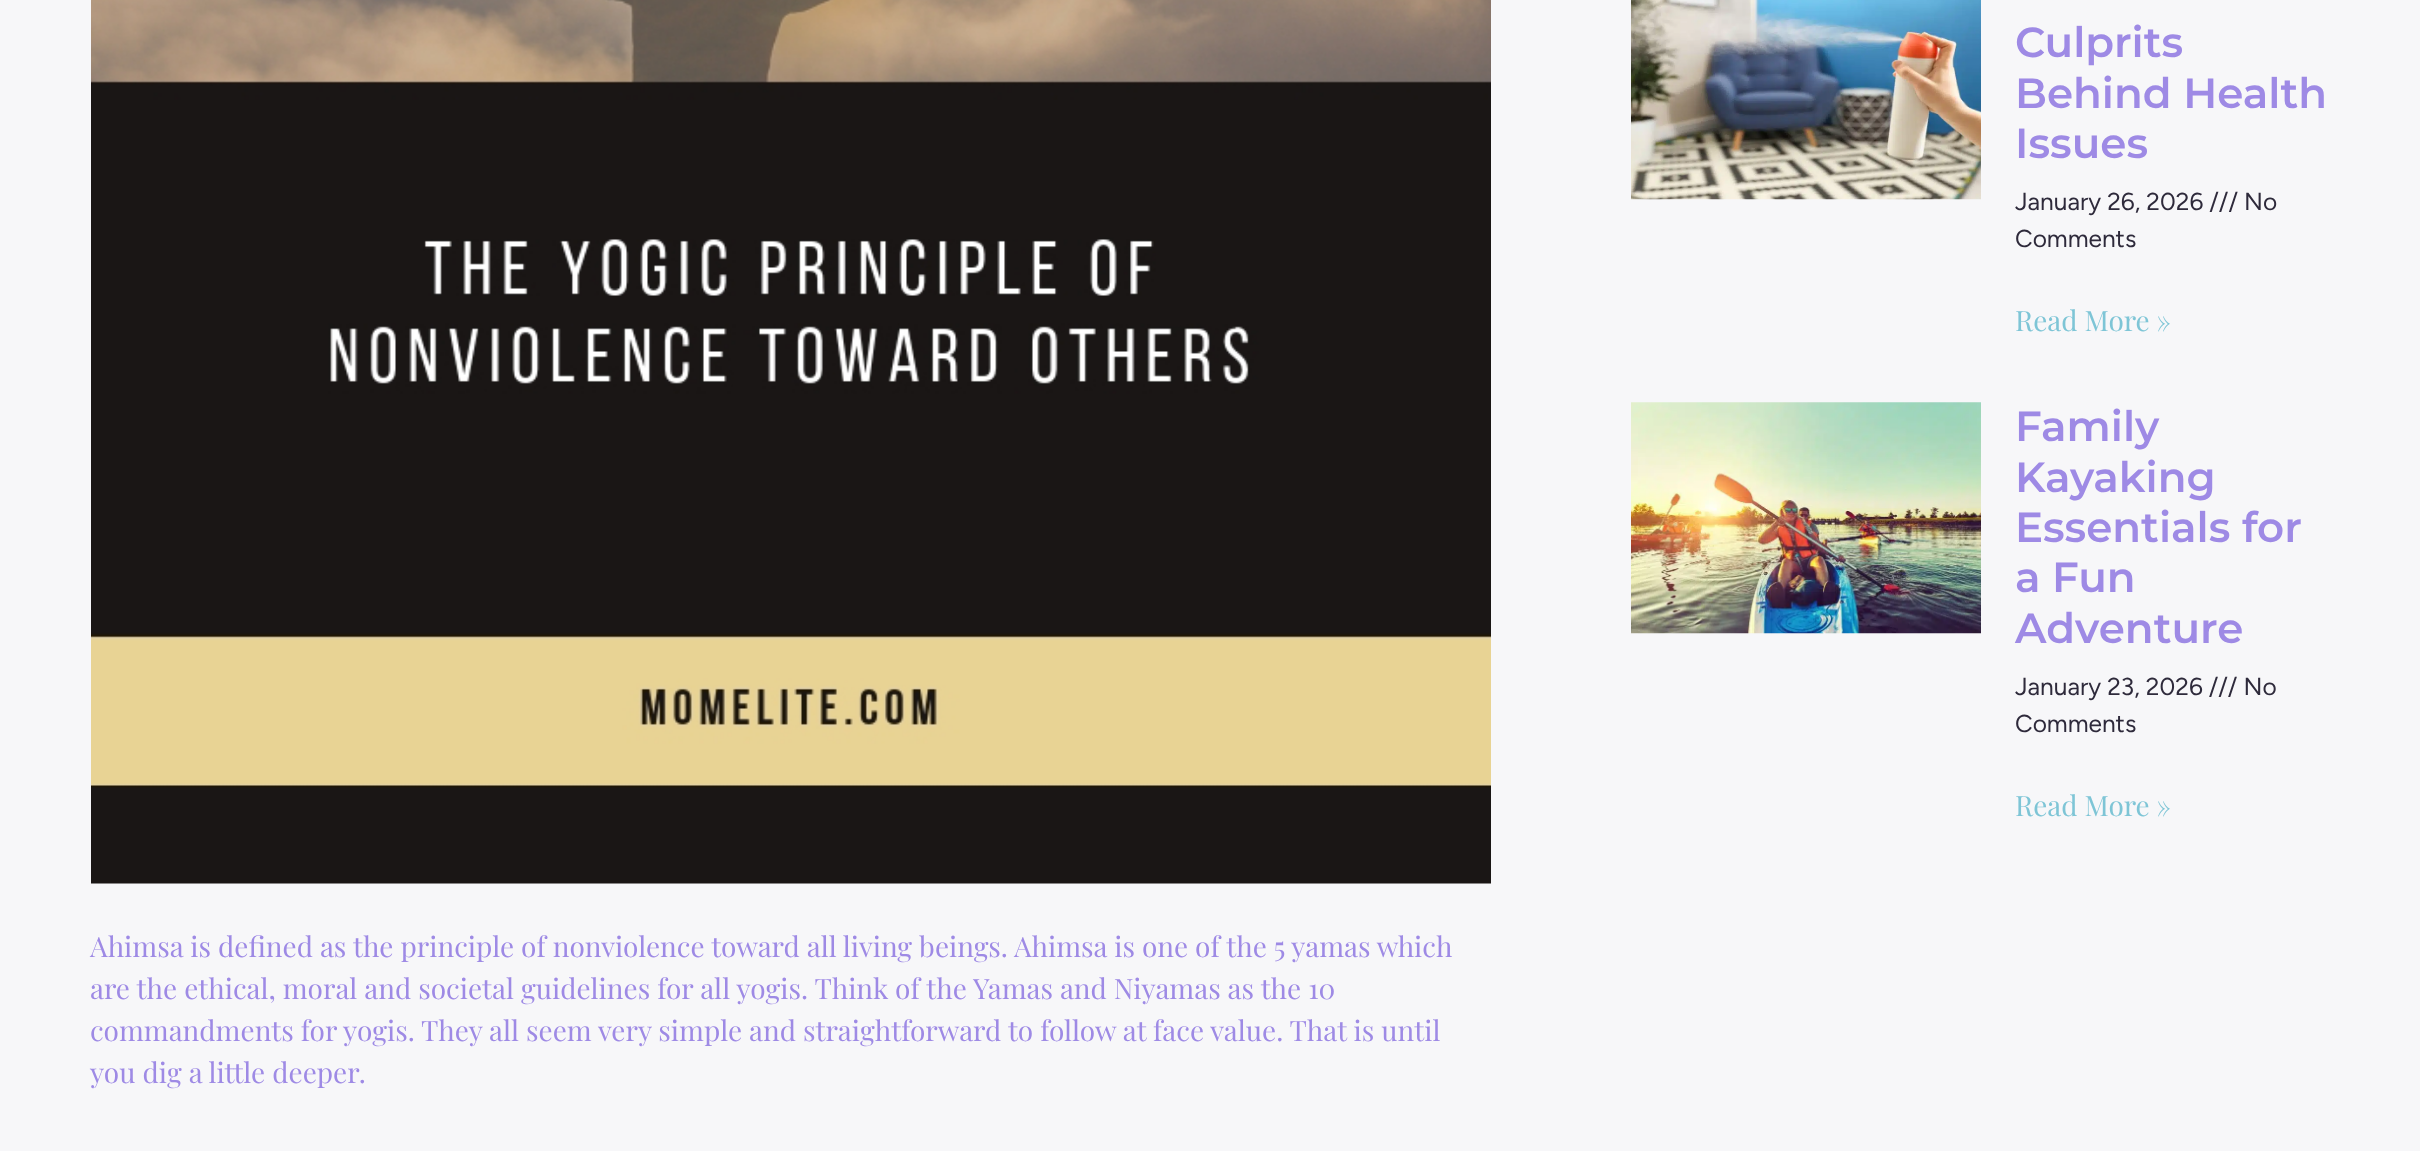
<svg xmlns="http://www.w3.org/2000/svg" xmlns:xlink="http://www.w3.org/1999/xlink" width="2420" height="1151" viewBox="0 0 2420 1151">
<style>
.cls-1{font:600 42px Montserrat;fill:#9e8ae5}
.cls-2{font:24.5px Figtree;fill:#2e2a3b}
.cls-3{font:28px Playfair Display;fill:#7ec5d6}
.cls-4{font:28px Playfair Display;fill:#9e8ae5}
</style>
<rect width="100%" height="100%" fill="#f7f7f9"/>
<image xlink:href="image0.png" x="1631" y="0" width="350" height="200"/>
<image xlink:href="image1.png" x="1631" y="402" width="350" height="232"/>
<image xlink:href="image2.png" x="91" y="0" width="1400" height="884"/>
<text class="cls-1"><tspan x="2015" y="57">Culprits</tspan><tspan x="2015" y="108">Behind Health</tspan><tspan x="2015" y="158">Issues</tspan></text>
<text class="cls-2"><tspan x="2015" y="210">January 26, 2026 /// No</tspan><tspan x="2015" y="247">Comments</tspan></text>
<text class="cls-3" x="2015" y="331">Read More »</text>
<text class="cls-1"><tspan x="2015" y="441">Family</tspan><tspan x="2015" y="492">Kayaking</tspan><tspan x="2015" y="542">Essentials for</tspan><tspan x="2015" y="592">a Fun</tspan><tspan x="2015" y="643">Adventure</tspan></text>
<text class="cls-2"><tspan x="2015" y="695">January 23, 2026 /// No</tspan><tspan x="2015" y="732">Comments</tspan></text>
<text class="cls-3" x="2015" y="816">Read More »</text>
<text class="cls-4"><tspan x="90" y="957">Ahimsa is defined as the principle of nonviolence toward all living beings. Ahimsa is one of the 5 yamas which</tspan><tspan x="90" y="999">are the ethical, moral and societal guidelines for all yogis. Think of the Yamas and Niyamas as the 10</tspan><tspan x="90" y="1041">commandments for yogis. They all seem very simple and straightforward to follow at face value. That is until</tspan><tspan x="90" y="1083">you dig a little deeper.</tspan></text>
</svg>
